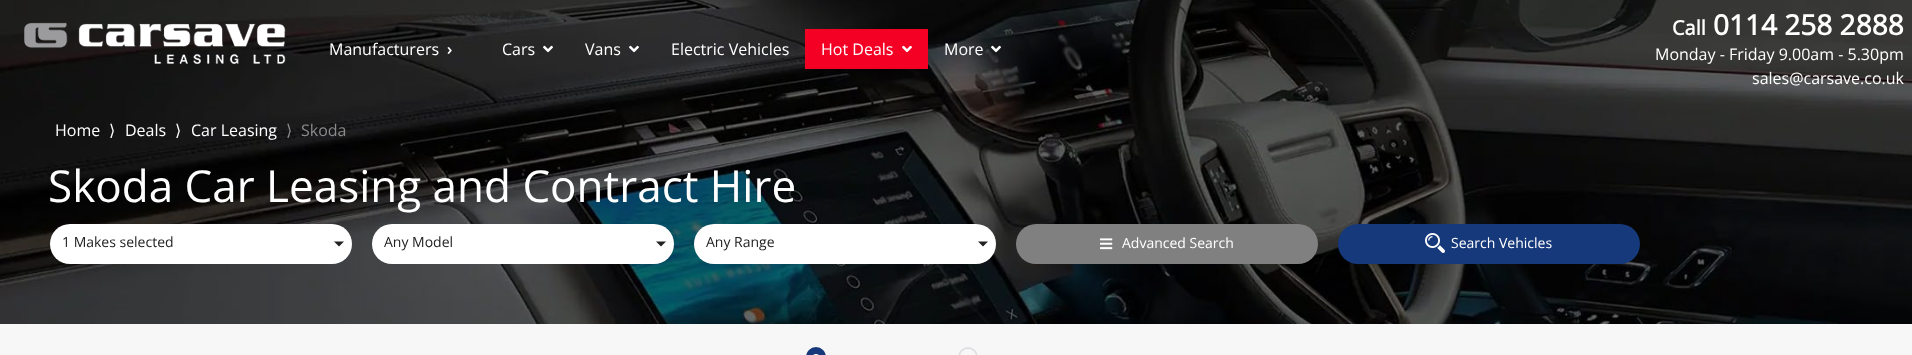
<svg xmlns="http://www.w3.org/2000/svg" xmlns:xlink="http://www.w3.org/1999/xlink" width="1912" height="355" viewBox="0 0 1912 355">
<style>
.cls-1{font:16px Open Sans;fill:#ffffff}
.cls-2{font:bold 16px Open Sans;fill:#ffffff}
.cls-3{font:bold 20px Open Sans;fill:#ffffff}
.cls-4{font:bold 28px Open Sans;fill:#ffffff}
.cls-5{font:16px DejaVu Sans;fill:#ffffff}
.cls-6{font:16px DejaVu Sans;fill:#8b8b8c}
.cls-7{font:16px Open Sans;fill:#8b8b8c}
.cls-8{font:44px Open Sans;fill:#ffffff}
.cls-9{font:14px Open Sans;fill:#222222}
.cls-10{font:14px Open Sans;fill:#ffffff}
</style>
<rect width="100%" height="100%" fill="#f7f7f7"/>
<image xlink:href="image5.png" x="0" y="0" width="1912" height="324"/>
<image xlink:href="image0.png" x="24" y="22" width="262" height="43"/>
<image xlink:href="image1.png" x="543" y="45" width="10" height="8"/>
<image xlink:href="image2.png" x="629" y="45" width="10" height="8"/>
<rect fill="#f40024" x="805" y="29" width="123" height="40"/>
<image xlink:href="image3.png" x="902" y="45" width="10" height="8"/>
<image xlink:href="image4.png" x="991" y="45" width="10" height="8"/>
<rect fill="#ffffff" x="50" y="224" width="302" height="40" rx="20"/>
<path fill="#222222" d="M334 241.5H344L339 246.5Z"/>
<rect fill="#ffffff" x="372" y="224" width="302" height="40" rx="20"/>
<path fill="#222222" d="M656 241.5H666L661 246.5Z"/>
<rect fill="#ffffff" x="694" y="224" width="302" height="40" rx="20"/>
<path fill="#222222" d="M978 241.5H988L983 246.5Z"/>
<rect fill="#808080" x="1016" y="224" width="302" height="40" rx="20"/>
<image xlink:href="image6.png" x="1100" y="238" width="13" height="12"/>
<rect fill="#16397b" x="1338" y="224" width="302" height="40" rx="20"/>
<image xlink:href="image7.png" x="1425" y="233" width="20" height="20"/>
<circle fill="#16397b" stroke="#16397b" stroke-width="2" cx="816" cy="357" r="9"/>
<rect fill="#ffffff" x="813" y="354" width="6" height="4" rx="3"/>
<circle fill="none" stroke="#e1e0e4" stroke-width="2" cx="968" cy="357" r="9"/>
<text class="cls-1" x="329" y="55">Manufacturers</text>
<text class="cls-2" x="447" y="55">›</text>
<text class="cls-1" x="502" y="55">Cars</text>
<text class="cls-1" x="585" y="55">Vans</text>
<text class="cls-1" x="671" y="55">Electric Vehicles</text>
<text class="cls-1" x="821" y="55">Hot Deals</text>
<text class="cls-1" x="944" y="55">More</text>
<text class="cls-3" x="1672" y="35">Call</text>
<text class="cls-4" x="1713" y="35">0114 258 2888</text>
<text class="cls-1" x="1655" y="60">Monday - Friday 9.00am - 5.30pm</text>
<text class="cls-1" x="1752" y="84">sales@carsave.co.uk</text>
<text class="cls-1" x="55" y="136">Home</text>
<text class="cls-5" x="109" y="136">⟩</text>
<text class="cls-1" x="125" y="136">Deals</text>
<text class="cls-5" x="175" y="136">⟩</text>
<text class="cls-1" x="191" y="136">Car Leasing</text>
<text class="cls-6" x="286" y="136">⟩</text>
<text class="cls-7" x="301" y="136">Skoda</text>
<text class="cls-8" x="48" y="202">Skoda Car Leasing and Contract Hire</text>
<text class="cls-9" x="62" y="247">1 Makes selected</text>
<text class="cls-9" x="384" y="247">Any Model</text>
<text class="cls-9" x="706" y="247">Any Range</text>
<text class="cls-10" x="1122" y="248">Advanced Search</text>
<text class="cls-10" x="1451" y="248">Search Vehicles</text>
</svg>
